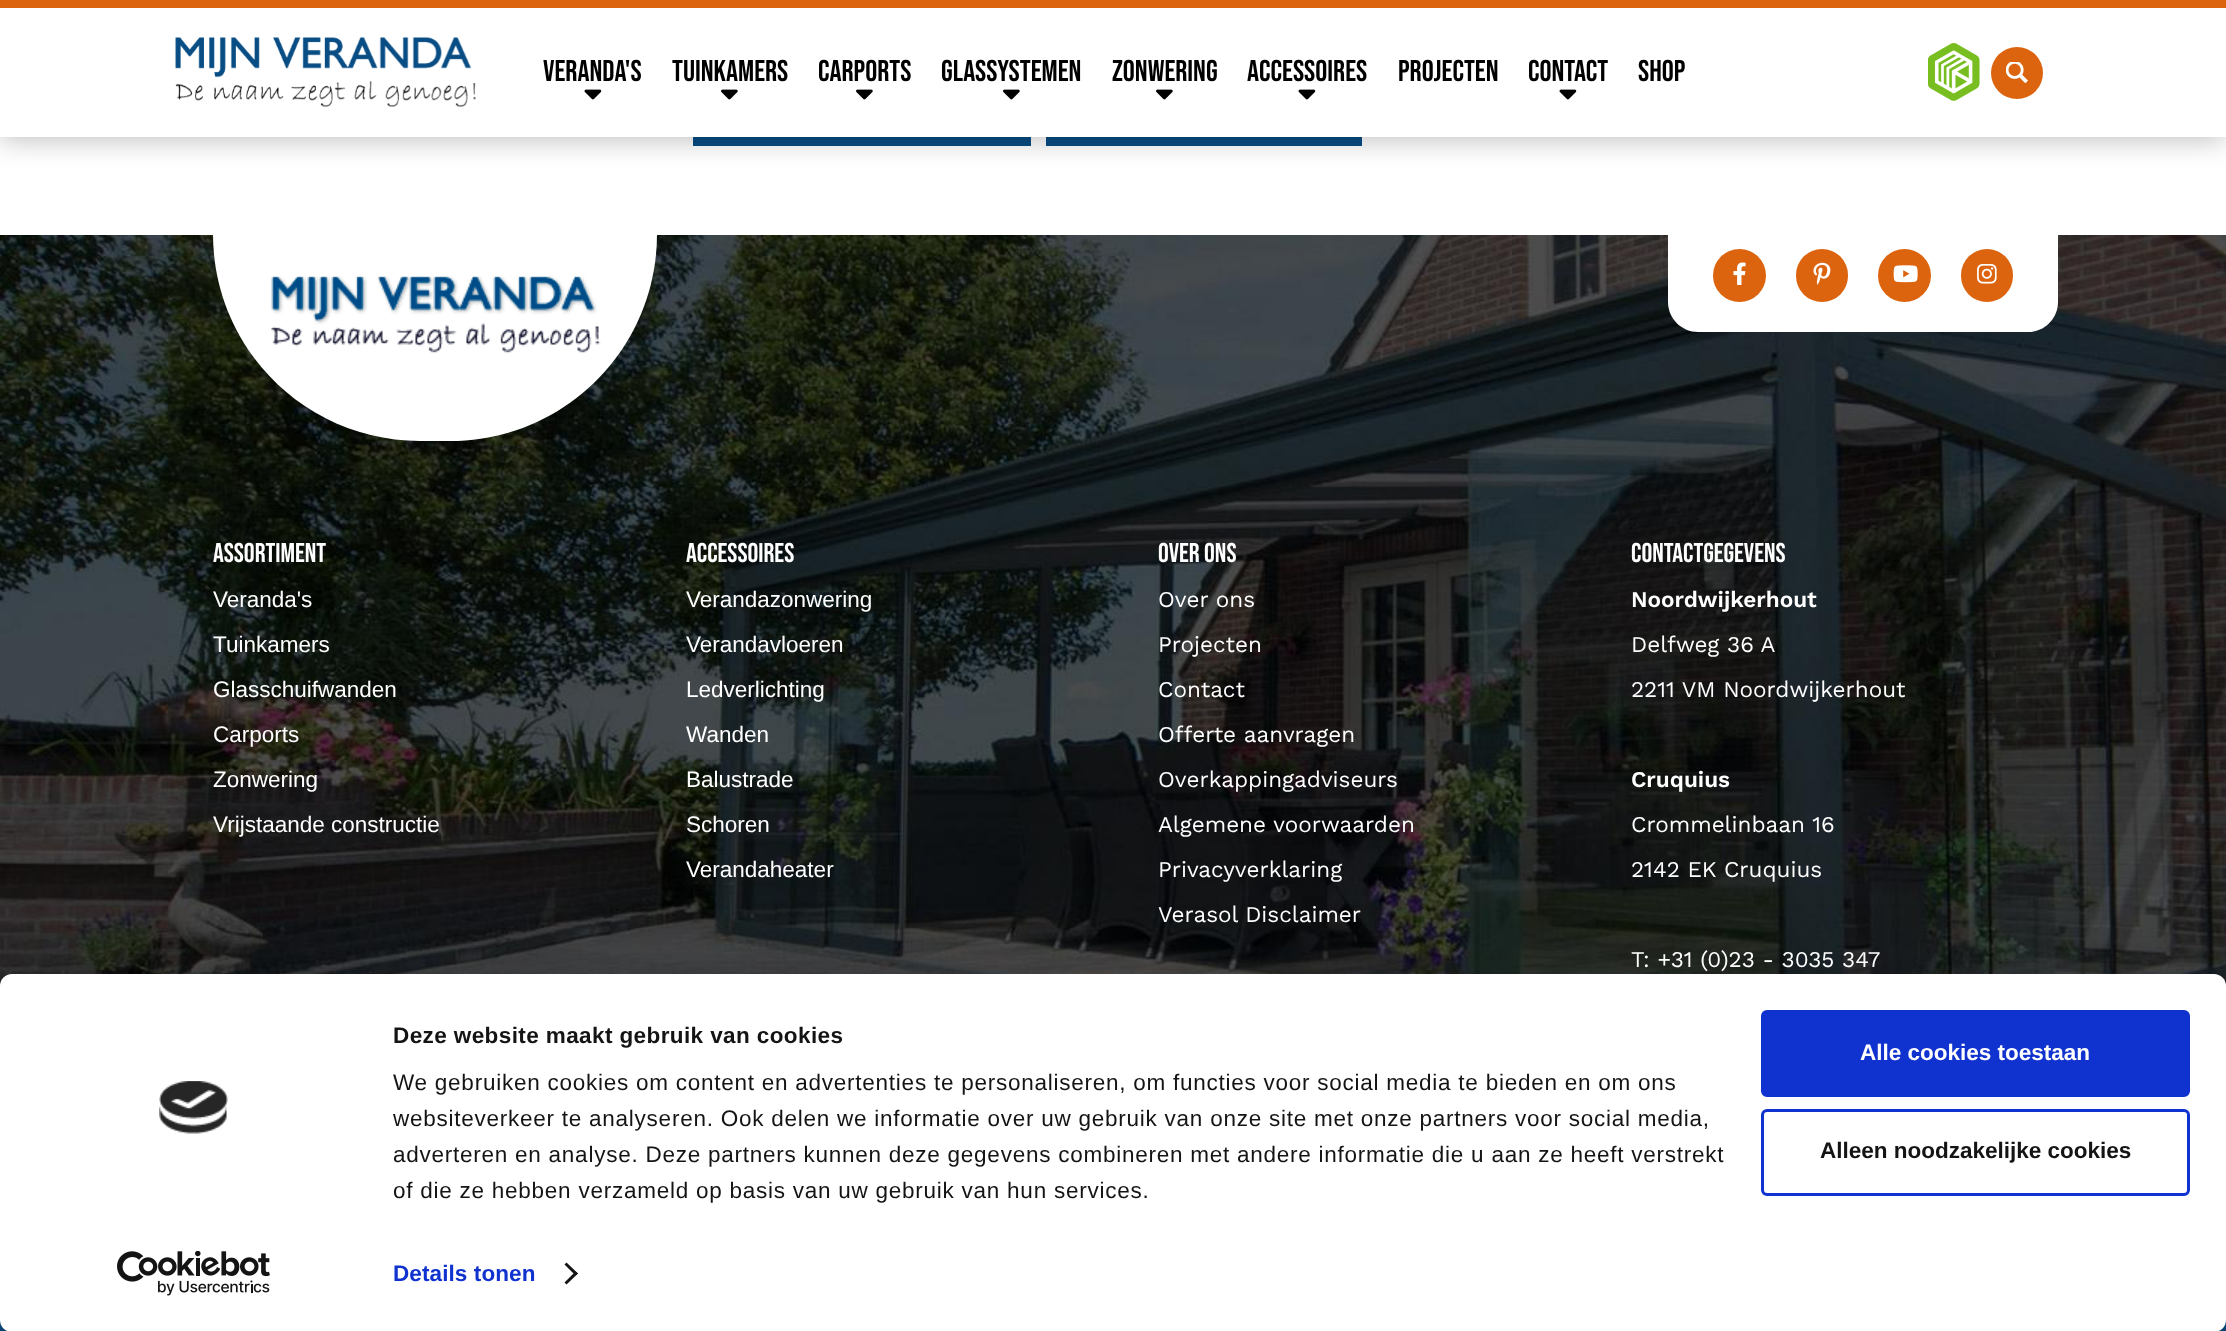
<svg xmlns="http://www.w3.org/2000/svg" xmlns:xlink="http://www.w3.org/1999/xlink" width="2226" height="1331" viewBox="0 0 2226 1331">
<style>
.cls-1{font:30px Bebas Neue;fill:#000000}
.cls-2{font:27px Bebas Neue;fill:#ffffff}
.cls-3{font:22.5px Liberation Sans;fill:#ffffff}
.cls-4{font:22.5px Work Sans;fill:#ffffff}
.cls-5{font:600 22.5px Work Sans;fill:#ffffff}
.cls-6{font:bold 22.5px Liberation Sans;letter-spacing:0.4px;fill:#141414}
.cls-7{font:22.5px Liberation Sans;letter-spacing:0.75px;fill:#141414}
.cls-8{font:bold 22.5px Liberation Sans;letter-spacing:0.1px;fill:#1032cf}
.cls-9{font:bold 22.5px Liberation Sans;fill:#ffffff}
.cls-10{font:bold 22.5px Liberation Sans;fill:#141414}
</style>
<rect width="100%" height="100%" fill="#ffffff"/>
<rect fill="#084d84" x="693" y="137" width="338" height="9"/>
<rect fill="#084d84" x="1046" y="137" width="316" height="9"/>
<rect fill="#000000" fill-opacity="0.3" filter="blur(15px)" x="0" y="0" width="2226" height="137"/>
<rect fill="#ffffff" x="0" y="8" width="2226" height="129"/>
<rect fill="#dc640f" x="0" y="0" width="2226" height="8"/>
<image xlink:href="image0.png" x="175" y="37" width="301" height="70"/>
<image xlink:href="image1.png" x="584" y="89" width="18" height="11"/>
<image xlink:href="image2.png" x="721" y="89" width="17" height="11"/>
<image xlink:href="image2.png" x="856" y="89" width="17" height="11"/>
<image xlink:href="image2.png" x="1003" y="89" width="17" height="11"/>
<image xlink:href="image2.png" x="1156" y="89" width="17" height="11"/>
<image xlink:href="image1.png" x="1298" y="89" width="18" height="11"/>
<image xlink:href="image1.png" x="1559" y="89" width="18" height="11"/>
<image xlink:href="image3.png" x="1928" y="43" width="52" height="58"/>
<circle fill="#dc640f" cx="2017" cy="73" r="26"/>
<image xlink:href="image4.png" x="2006" y="62" width="22" height="21"/>
<image xlink:href="image5.png" x="0" y="235" width="2226" height="751"/>
<path fill="#ffffff" d="M213 234H657C657 348.5 564.5 441 450 441H420C305.5 441 213 348.5 213 234Z"/>
<image xlink:href="image6.png" x="258" y="276" width="354" height="88"/>
<path fill="#ffffff" d="M1668 234H2058V302C2058 318.5 2044.5 332 2028 332H1698C1681.5 332 1668 318.5 1668 302Z"/>
<circle fill="#dc640f" cx="1739.5" cy="275.5" r="26.5"/>
<image xlink:href="image7.png" x="1733" y="262" width="13" height="23"/>
<rect fill="#dc640f" x="1796" y="249" width="52" height="53" rx="26"/>
<image xlink:href="image8.png" x="1813" y="262" width="18" height="23"/>
<circle fill="#dc640f" cx="1904.5" cy="275.5" r="26.5"/>
<image xlink:href="image9.png" x="1893" y="265" width="25" height="18"/>
<rect fill="#dc640f" x="1961" y="249" width="52" height="53" rx="26"/>
<image xlink:href="image10.png" x="1977" y="264" width="20" height="20"/>
<rect fill="#084d84" x="0" y="1320" width="2226" height="11"/>
<rect fill="#000000" fill-opacity="0.3" filter="blur(52.5px)" x="0" y="1019" width="2226" height="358" rx="12"/>
<rect fill="#ffffff" x="0" y="974" width="2226" height="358" rx="12"/>
<image xlink:href="image11.png" x="159" y="1081" width="69" height="53"/>
<image xlink:href="image12.png" x="117" y="1251" width="153" height="45"/>
<path fill="#141414" d="M566.5 1262.5L578 1273.5L575.5 1275.5L564.5 1264.5Z"/>
<path fill="#141414" d="M575.5 1271.5L578 1273.5L566.5 1284.5L564.5 1282.5Z"/>
<rect fill="#1032cf" stroke="#1032cf" stroke-width="3" x="1762.5" y="1011.5" width="426" height="84" rx="4.5"/>
<rect fill="none" stroke="#1032cf" stroke-width="3" x="1762.5" y="1110.5" width="426" height="84" rx="4.5"/>
<text class="cls-1" x="543" y="81">VERANDA'S</text>
<text class="cls-1" x="672" y="81">TUINKAMERS</text>
<text class="cls-1" x="818" y="81">CARPORTS</text>
<text class="cls-1" x="941" y="81">GLASSYSTEMEN</text>
<text class="cls-1" x="1112" y="81">ZONWERING</text>
<text class="cls-1" x="1247" y="81">ACCESSOIRES</text>
<text class="cls-1" x="1398" y="81">PROJECTEN</text>
<text class="cls-1" x="1528" y="81">CONTACT</text>
<text class="cls-1" x="1638" y="81">SHOP</text>
<text class="cls-2" x="213" y="562">Assortiment</text>
<text class="cls-3" x="213" y="607">Veranda's</text>
<text class="cls-3" x="213" y="652">Tuinkamers</text>
<text class="cls-3" x="213" y="697">Glasschuifwanden</text>
<text class="cls-3" x="213" y="742">Carports</text>
<text class="cls-3" x="213" y="787">Zonwering</text>
<text class="cls-3" x="213" y="832">Vrijstaande constructie</text>
<text class="cls-2" x="686" y="562">Accessoires</text>
<text class="cls-3" x="686" y="607">Verandazonwering</text>
<text class="cls-3" x="686" y="652">Verandavloeren</text>
<text class="cls-3" x="686" y="697">Ledverlichting</text>
<text class="cls-3" x="686" y="742">Wanden</text>
<text class="cls-3" x="686" y="787">Balustrade</text>
<text class="cls-3" x="686" y="832">Schoren</text>
<text class="cls-3" x="686" y="877">Verandaheater</text>
<text class="cls-2" x="1158" y="562">Over ons</text>
<text class="cls-4" x="1158" y="607">Over ons</text>
<text class="cls-4" x="1158" y="652">Projecten</text>
<text class="cls-4" x="1158" y="697">Contact</text>
<text class="cls-4" x="1158" y="742">Offerte aanvragen</text>
<text class="cls-4" x="1158" y="787">Overkappingadviseurs</text>
<text class="cls-4" x="1158" y="832">Algemene voorwaarden</text>
<text class="cls-4" x="1158" y="877">Privacyverklaring</text>
<text class="cls-4" x="1158" y="922">Verasol Disclaimer</text>
<text class="cls-2" x="1631" y="562">Contactgegevens</text>
<text class="cls-5" x="1631" y="607">Noordwijkerhout</text>
<text class="cls-4" x="1631" y="652">Delfweg 36 A</text>
<text class="cls-4" x="1631" y="697">2211 VM Noordwijkerhout</text>
<text class="cls-5" x="1631" y="787">Cruquius</text>
<text class="cls-4" x="1631" y="832">Crommelinbaan 16</text>
<text class="cls-4" x="1631" y="877">2142 EK Cruquius</text>
<text class="cls-4" x="1631" y="967">T: +31 (0)23 - 3035 347</text>
<text class="cls-6" x="393" y="1043">Deze website maakt gebruik van cookies</text>
<text class="cls-7"><tspan x="393" y="1090">We gebruiken cookies om content en advertenties te personaliseren, om functies voor social media te bieden en om ons</tspan><tspan x="393" y="1126">websiteverkeer te analyseren. Ook delen we informatie over uw gebruik van onze site met onze partners voor social media,</tspan><tspan x="393" y="1162">adverteren en analyse. Deze partners kunnen deze gegevens combineren met andere informatie die u aan ze heeft verstrekt</tspan><tspan x="393" y="1198">of die ze hebben verzameld op basis van uw gebruik van hun services.</tspan></text>
<text class="cls-8" x="393" y="1281">Details tonen</text>
<text class="cls-9" x="1860" y="1060">Alle cookies toestaan</text>
<text class="cls-10" x="1820" y="1158">Alleen noodzakelijke cookies</text>
</svg>
